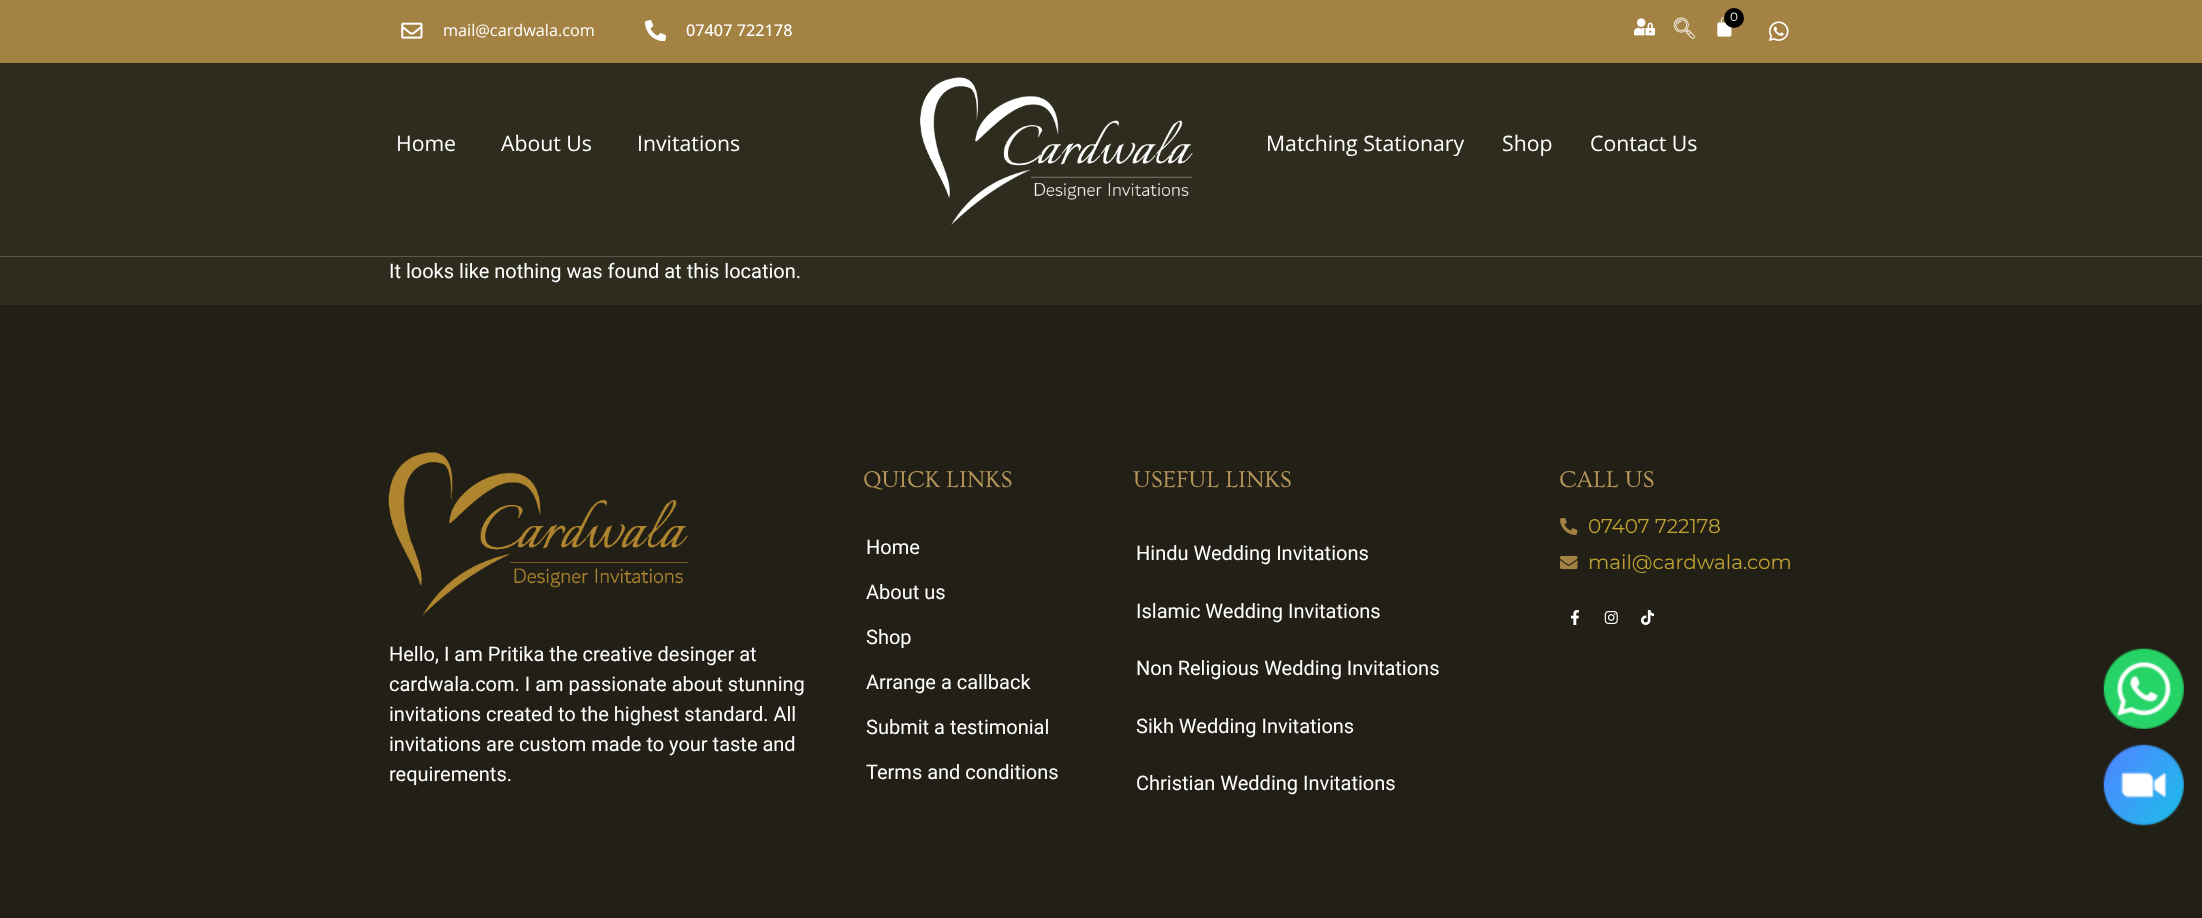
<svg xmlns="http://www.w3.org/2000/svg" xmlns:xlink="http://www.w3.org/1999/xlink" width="2202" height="918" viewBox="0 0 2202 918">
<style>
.cls-1{font:12px Montserrat;fill:#ffffff}
.cls-2{font:16.25px Open Sans;fill:#ffffff}
.cls-3{font:500 16.25px Open Sans;fill:#ffffff}
.cls-4{font:21.25px Open Sans;fill:#ffffff}
.cls-5{font:20px Roboto;fill:#ffffff}
.cls-6{font:24px Ovo;fill:#b6965b}
.cls-7{font:20px Montserrat;fill:#bfa232}
</style>
<rect width="100%" height="100%" fill="#2e2c1e"/>
<rect fill="#a48244" x="0" y="0" width="2202" height="63"/>
<image xlink:href="image0.png" x="1634" y="18" width="21" height="18"/>
<image xlink:href="image1.png" x="1673" y="17" width="22" height="22"/>
<image xlink:href="image2.png" x="1717" y="17" width="15" height="20"/>
<circle fill="#000000" cx="1734" cy="18" r="10"/>
<image xlink:href="image3.png" x="1769" y="21" width="20" height="20"/>
<image xlink:href="image4.png" x="401" y="22" width="22" height="17"/>
<image xlink:href="image5.png" x="645" y="20" width="21" height="21"/>
<image xlink:href="image6.png" x="920" y="77" width="273" height="148"/>
<rect fill="#59584d" x="0" y="256" width="2202" height="1"/>
<rect fill="#222016" x="0" y="305" width="2202" height="613"/>
<image xlink:href="image7.png" x="388" y="452" width="300" height="163"/>
<image xlink:href="image8.png" x="1560" y="518" width="18" height="17"/>
<image xlink:href="image9.png" x="1560" y="555" width="18" height="15"/>
<image xlink:href="image10.png" x="1571" y="610" width="8" height="15"/>
<image xlink:href="image11.png" x="1604" y="611" width="14" height="13"/>
<image xlink:href="image12.png" x="1641" y="610" width="14" height="15"/>
<image xlink:href="image13.png" x="2103" y="648" width="81" height="81"/>
<image xlink:href="image14.png" x="2103" y="744" width="81" height="82"/>
<text class="cls-1" x="1730" y="21">0</text>
<text class="cls-2" x="443" y="36">mail@cardwala.com</text>
<text class="cls-3" x="686" y="36">07407 722178</text>
<text class="cls-4" x="396" y="151">Home</text>
<text class="cls-4" x="501" y="151">About Us</text>
<text class="cls-4" x="637" y="151">Invitations</text>
<text class="cls-4" x="1266" y="151">Matching Stationary</text>
<text class="cls-4" x="1502" y="151">Shop</text>
<text class="cls-4" x="1590" y="151">Contact Us</text>
<text class="cls-5" x="389" y="278">It looks like nothing was found at this location.</text>
<text class="cls-5"><tspan x="389" y="661">Hello, I am Pritika the creative desinger at</tspan><tspan x="389" y="691">cardwala.com. I am passionate about stunning</tspan><tspan x="389" y="721">invitations created to the highest standard. All</tspan><tspan x="389" y="751">invitations are custom made to your taste and</tspan><tspan x="389" y="781">requirements.</tspan></text>
<text class="cls-6" x="863" y="487">QUICK LINKS</text>
<text class="cls-5" x="866" y="554">Home</text>
<text class="cls-5" x="866" y="599">About us</text>
<text class="cls-5" x="866" y="644">Shop</text>
<text class="cls-5" x="866" y="689">Arrange a callback</text>
<text class="cls-5" x="866" y="734">Submit a testimonial</text>
<text class="cls-5" x="866" y="779">Terms and conditions</text>
<text class="cls-6" x="1133" y="487">USEFUL LINKS</text>
<text class="cls-5" x="1136" y="560">Hindu Wedding Invitations</text>
<text class="cls-5" x="1136" y="618">Islamic Wedding Invitations</text>
<text class="cls-5" x="1136" y="675">Non Religious Wedding Invitations</text>
<text class="cls-5" x="1136" y="733">Sikh Wedding Invitations</text>
<text class="cls-5" x="1136" y="790">Christian Wedding Invitations</text>
<text class="cls-6" x="1559" y="487">CALL US</text>
<text class="cls-7"><tspan x="1588" y="533">07407 722178</tspan><tspan x="1588" y="569">mail@cardwala.com</tspan></text>
</svg>
